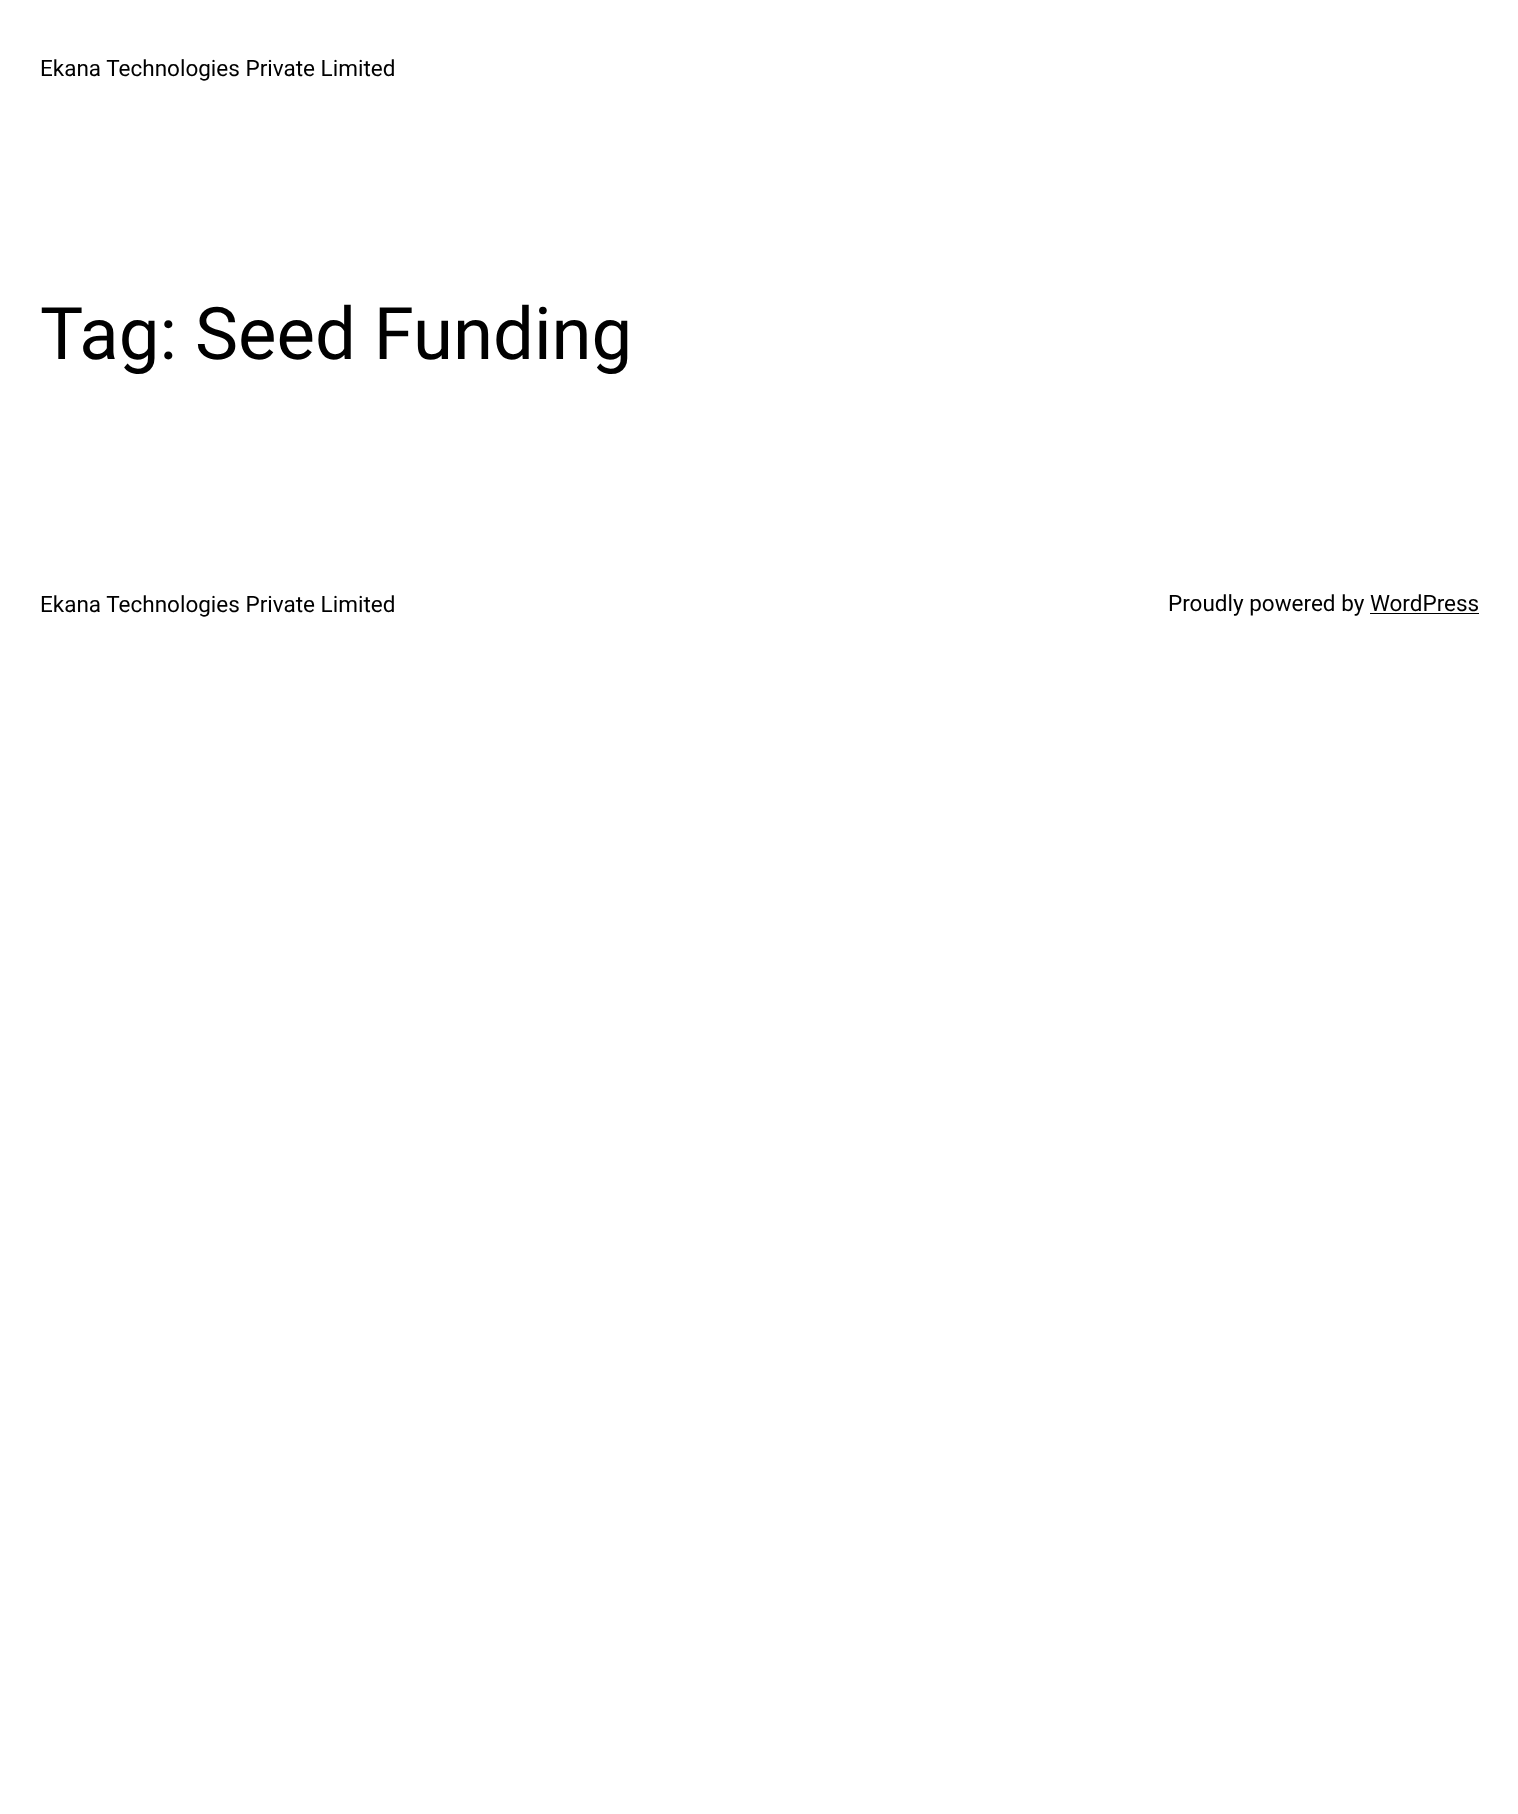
<svg xmlns="http://www.w3.org/2000/svg" xmlns:xlink="http://www.w3.org/1999/xlink" width="1518" height="1814" viewBox="0 0 1518 1814">
<style>
.cls-1{font:22.5px Roboto;fill:#000000}
.cls-2{font:72.5px Roboto;fill:#000000}
</style>
<rect width="100%" height="100%" fill="#ffffff"/>
<rect fill="#000000" x="1370" y="613" width="109" height="1"/>
<text class="cls-1" x="40" y="76">Ekana Technologies Private Limited</text>
<text class="cls-2" x="40" y="359">Tag: Seed Funding</text>
<text class="cls-1" x="40" y="612">Ekana Technologies Private Limited</text>
<text class="cls-1" x="1168" y="611">Proudly powered by WordPress</text>
</svg>
